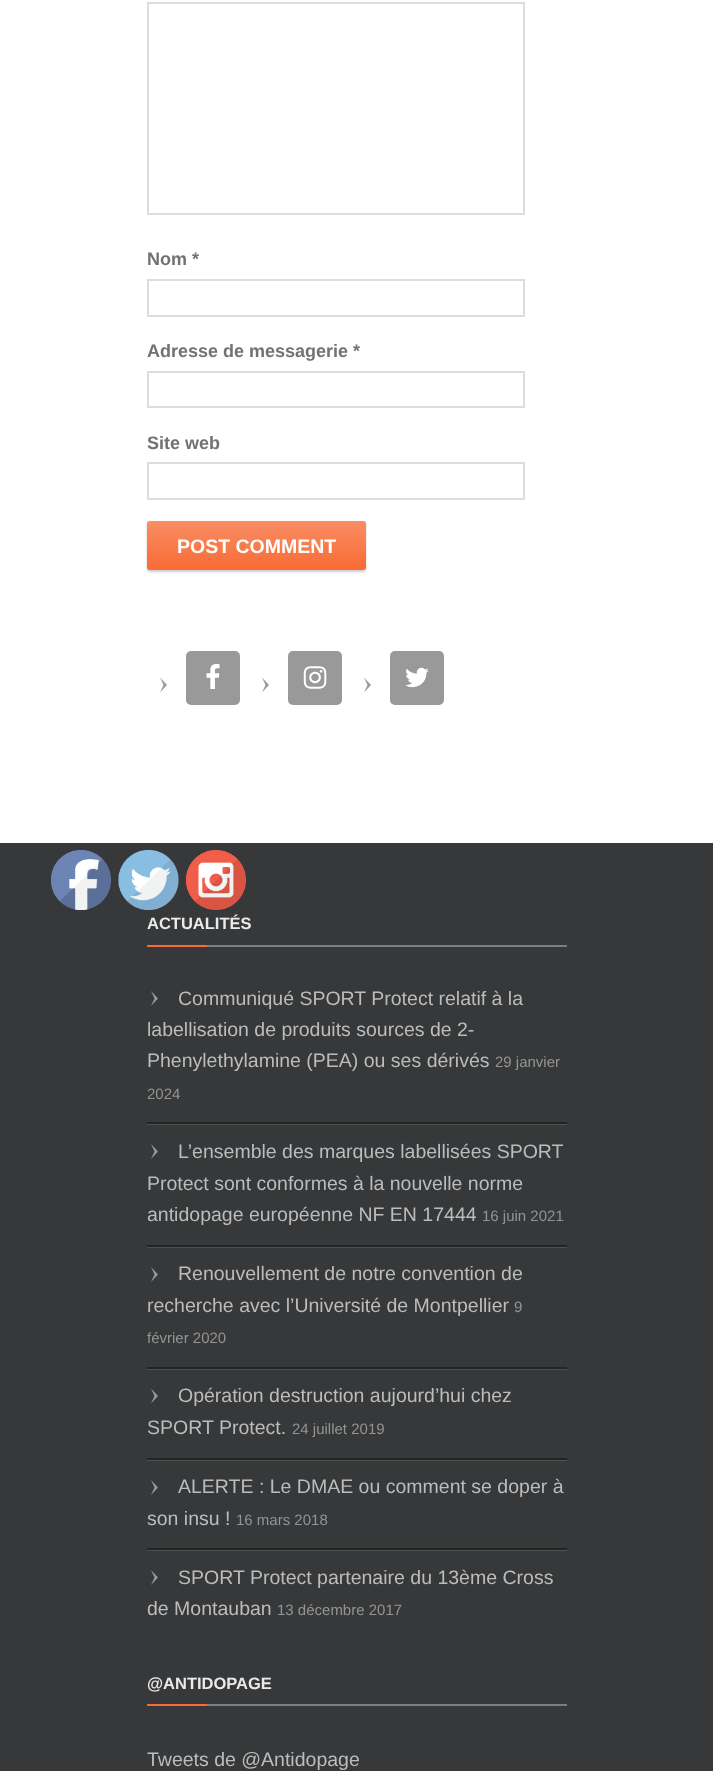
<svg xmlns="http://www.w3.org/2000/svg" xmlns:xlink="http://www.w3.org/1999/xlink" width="713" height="1771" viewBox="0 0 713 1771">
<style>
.cls-1{font:bold 18px Liberation Sans;fill:#727272}
.cls-2{font:bold 19.5px Liberation Sans;fill:#ffffff}
.cls-3{font:bold 16.5px Liberation Sans;fill:#eaeaea}
.cls-4{font:19.5px Liberation Sans;fill:#bcbcbc}
.cls-5{font:15px Liberation Sans;fill:#949494}
</style>
<defs>
<linearGradient id="g1" gradientUnits="userSpaceOnUse" x1="257" y1="521" x2="257" y2="570"><stop offset="0" stop-color="#ffffff" stop-opacity="0.23"/><stop offset="1" stop-color="#ffffff" stop-opacity="0"/></linearGradient>
</defs>
<rect width="100%" height="100%" fill="#ffffff"/>
<rect fill="none" stroke="#dddddd" stroke-width="2" x="148" y="3" width="376" height="211"/>
<rect fill="none" stroke="#dddddd" stroke-width="2" x="148" y="280" width="376" height="36"/>
<rect fill="none" stroke="#dddddd" stroke-width="2" x="148" y="372" width="376" height="35"/>
<rect fill="none" stroke="#dddddd" stroke-width="2" x="148" y="463" width="376" height="36"/>
<rect fill="#000000" fill-opacity="0.2" filter="blur(1px)" x="147" y="522" width="219" height="50" rx="3"/>
<rect fill="#f86b35" x="147" y="521" width="219" height="49" rx="3"/>
<rect fill="url(#g1)" x="147" y="521" width="219" height="49" rx="3"/>
<path fill="#999999" d="M160 692.5L163.5 685L160 677.5L167 685Z"/>
<rect fill="#999999" x="186" y="651" width="54" height="54" rx="5"/>
<image xlink:href="image0.png" x="206" y="664" width="14" height="25"/>
<path fill="#999999" d="M262 692.5L265.5 685L262 677.5L269 685Z"/>
<rect fill="#999999" x="288" y="651" width="54" height="54" rx="5"/>
<image xlink:href="image1.png" x="303" y="666" width="24" height="23"/>
<path fill="#999999" d="M364 692.5L367.5 685L364 677.5L371 685Z"/>
<rect fill="#999999" x="390" y="651" width="54" height="54" rx="5"/>
<image xlink:href="image2.png" x="405" y="667" width="24" height="21"/>
<rect fill="#373839" x="0" y="843" width="713" height="928"/>
<rect fill="#7e7e7e" x="207" y="945" width="360" height="2"/>
<rect fill="#f86b35" x="147" y="945" width="60" height="2"/>
<rect fill="#4f5050" x="147" y="1124" width="420" height="1"/>
<rect fill="#232323" x="147" y="1122" width="420" height="2"/>
<path fill="#999999" d="M151 1006L154.5 998.5L151 991L158 998.5Z"/>
<rect fill="#4f5050" x="147" y="1247" width="420" height="1"/>
<rect fill="#232323" x="147" y="1245" width="420" height="2"/>
<path fill="#999999" d="M151 1159L154.5 1151.5L151 1144L158 1151.5Z"/>
<rect fill="#4f5050" x="147" y="1369" width="420" height="1"/>
<rect fill="#232323" x="147" y="1367" width="420" height="2"/>
<path fill="#999999" d="M151 1282L154.5 1274.5L151 1267L158 1274.5Z"/>
<rect fill="#4f5050" x="147" y="1460" width="420" height="1"/>
<rect fill="#232323" x="147" y="1458" width="420" height="2"/>
<path fill="#999999" d="M151 1403.5L154.5 1396L151 1388.5L158 1396Z"/>
<rect fill="#4f5050" x="147" y="1550" width="420" height="1"/>
<rect fill="#232323" x="147" y="1548" width="420" height="2"/>
<path fill="#999999" d="M151 1495L154.5 1487.5L151 1480L158 1487.5Z"/>
<path fill="#999999" d="M151 1585L154.5 1577.5L151 1570L158 1577.5Z"/>
<rect fill="#7e7e7e" x="207" y="1704" width="360" height="2"/>
<rect fill="#f86b35" x="147" y="1704" width="60" height="2"/>
<image xlink:href="image3.png" x="51" y="850" width="60" height="60"/>
<image xlink:href="image4.png" x="118" y="850" width="61" height="60"/>
<image xlink:href="image5.png" x="186" y="850" width="60" height="60"/>
<text class="cls-1" x="147" y="265">Nom *</text>
<text class="cls-1" x="147" y="357">Adresse de messagerie *</text>
<text class="cls-1" x="147" y="449">Site web</text>
<text class="cls-2" x="177" y="553">POST COMMENT</text>
<text class="cls-3" x="147" y="929">ACTUALITÉS</text>
<text class="cls-4" x="178" y="1005">Communiqué SPORT Protect relatif à la</text>
<text class="cls-4"><tspan x="147" y="1036">labellisation de produits sources de 2-</tspan><tspan x="147" y="1067">Phenylethylamine (PEA) ou ses dérivés</tspan></text>
<text class="cls-5" x="495" y="1067">29 janvier</text>
<text class="cls-5" x="147" y="1099">2024</text>
<text class="cls-4" x="178" y="1158">L’ensemble des marques labellisées SPORT</text>
<text class="cls-4"><tspan x="147" y="1190">Protect sont conformes à la nouvelle norme</tspan><tspan x="147" y="1221">antidopage européenne NF EN 17444</tspan></text>
<text class="cls-5" x="482" y="1221">16 juin 2021</text>
<text class="cls-4" x="178" y="1280">Renouvellement de notre convention de</text>
<text class="cls-4" x="147" y="1312">recherche avec l’Université de Montpellier</text>
<text class="cls-5" x="514" y="1312">9</text>
<text class="cls-5" x="147" y="1343">février 2020</text>
<text class="cls-4" x="178" y="1402">Opération destruction aujourd’hui chez</text>
<text class="cls-4" x="147" y="1434">SPORT Protect.</text>
<text class="cls-5" x="292" y="1434">24 juillet 2019</text>
<text class="cls-4" x="178" y="1493">ALERTE : Le DMAE ou comment se doper à</text>
<text class="cls-4" x="147" y="1525">son insu !</text>
<text class="cls-5" x="236" y="1525">16 mars 2018</text>
<text class="cls-4" x="178" y="1584">SPORT Protect partenaire du 13ème Cross</text>
<text class="cls-4" x="147" y="1615">de Montauban</text>
<text class="cls-5" x="277" y="1615">13 décembre 2017</text>
<text class="cls-3" x="147" y="1689">@ANTIDOPAGE</text>
<text class="cls-4" x="147" y="1766">Tweets de @Antidopage</text>
</svg>
